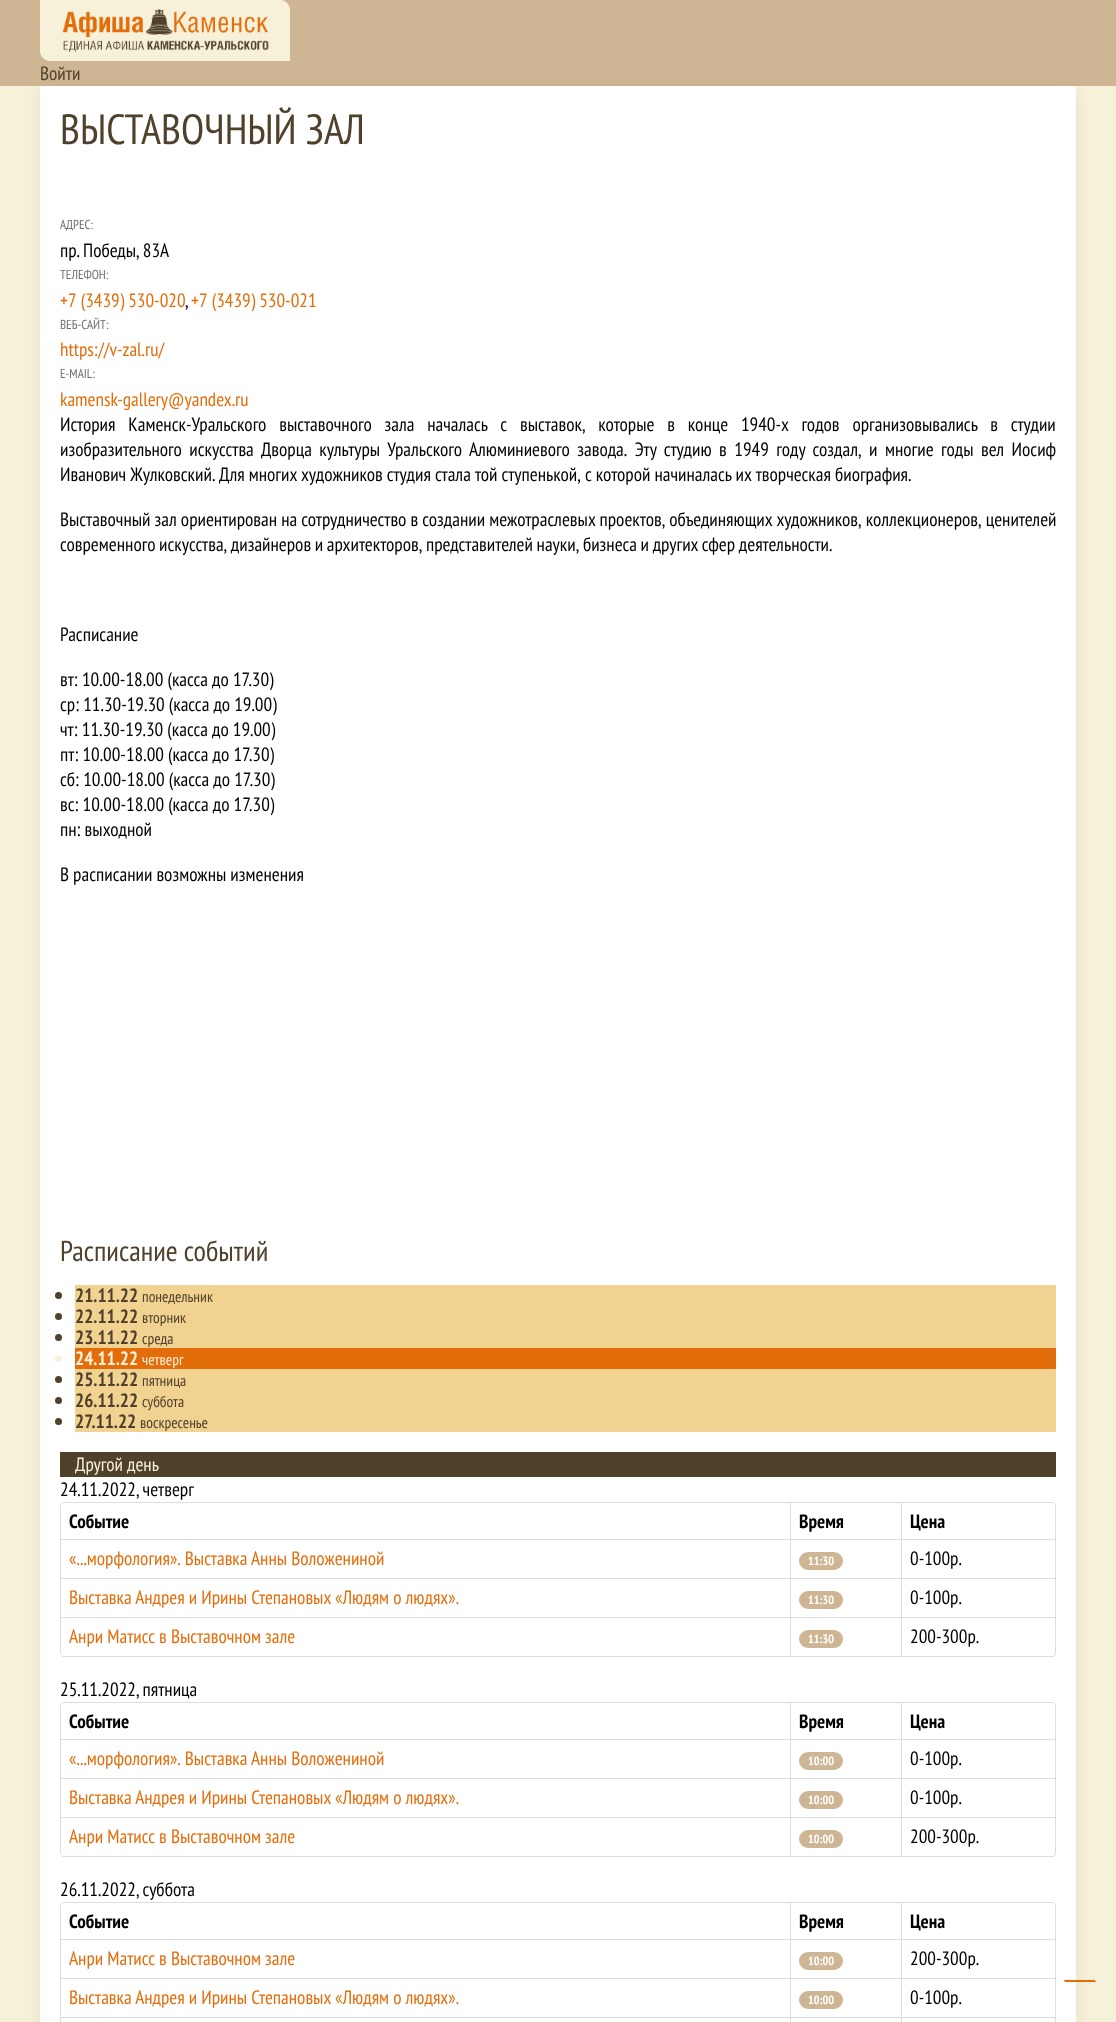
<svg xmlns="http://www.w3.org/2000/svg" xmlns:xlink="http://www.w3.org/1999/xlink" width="1116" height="2022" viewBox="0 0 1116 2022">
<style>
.cls-1{font:19.2px PT Sans Narrow;fill:#50412d}
.cls-2{font:42.25px PT Sans Narrow;fill:#50412d}
.cls-3{font:13px PT Sans Narrow;fill:#707070}
.cls-4{font:19.2px PT Sans Narrow;fill:#000000}
.cls-5{font:19.2px PT Sans Narrow;fill:#e46d0b}
.cls-6{font:28.75px PT Sans Narrow;fill:#50412d}
.cls-7{font:bold 19.2px PT Sans Narrow;fill:#50412d}
.cls-8{font:15.5px PT Sans Narrow;fill:#50412d}
.cls-9{font:bold 19.2px PT Sans Narrow;fill:#f7f1da}
.cls-10{font:15.5px PT Sans Narrow;fill:#f7f1da}
.cls-11{font:19.2px PT Sans Narrow;fill:#f7f1da}
.cls-12{font:bold 19.2px PT Sans Narrow;fill:#000000}
.cls-13{font:bold 12px PT Sans Narrow;fill:#ffffff}
</style>
<rect width="100%" height="100%" fill="#f7f1da"/>
<rect fill="#ceb695" x="0" y="0" width="1116" height="86"/>
<path fill="#f7f1da" d="M40 0H280C285.5 0 290 4.5 290 10V61H50C44.5 61 40 56.5 40 51Z"/>
<image xlink:href="image0.png" x="62" y="9" width="207" height="43"/>
<rect fill="#000000" fill-opacity="0.08" filter="blur(7.5px)" x="40" y="91" width="1036" height="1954"/>
<rect fill="#ffffff" x="40" y="86" width="1036" height="1936"/>
<rect fill="#f2d291" x="75" y="1285" width="981" height="63"/>
<circle fill="#50412d" cx="58.5" cy="1295.5" r="3.5"/>
<circle fill="#50412d" cx="58.5" cy="1316.5" r="3.5"/>
<circle fill="#50412d" cx="58.5" cy="1337.5" r="3.5"/>
<rect fill="#e46d0b" x="75" y="1348" width="981" height="21"/>
<circle fill="#f7f1da" cx="58.5" cy="1358.5" r="3.5"/>
<rect fill="#f2d291" x="75" y="1369" width="981" height="63"/>
<circle fill="#50412d" cx="58.5" cy="1379.5" r="3.5"/>
<circle fill="#50412d" cx="58.5" cy="1400.5" r="3.5"/>
<circle fill="#50412d" cx="58.5" cy="1421.5" r="3.5"/>
<rect fill="#50412d" x="60" y="1452" width="996" height="25"/>
<path fill="#dddddd" fill-rule="evenodd" d="M64 1502H1052C1054 1502 1056 1504 1056 1506V1653C1056 1655 1054 1657 1052 1657H64C62 1657 60 1655 60 1653V1506C60 1504 62 1502 64 1502ZM64 1503H1052C1054 1503 1055 1504 1055 1506V1653C1055 1655 1054 1656 1052 1656H64C62 1656 60 1655 60 1653V1506C60 1504 62 1503 64 1503Z"/>
<rect fill="#dddddd" x="60" y="1505" width="1" height="34"/>
<rect fill="#dddddd" x="790" y="1503" width="1" height="36"/>
<rect fill="#dddddd" x="901" y="1503" width="1" height="36"/>
<rect fill="#dddddd" x="60" y="1539" width="995" height="1"/>
<rect fill="#dddddd" x="60" y="1539" width="1" height="39"/>
<rect fill="#dddddd" x="790" y="1539" width="1" height="39"/>
<rect fill="#ceb695" x="799" y="1552" width="44" height="18" rx="9"/>
<rect fill="#dddddd" x="901" y="1539" width="1" height="39"/>
<rect fill="#dddddd" x="60" y="1578" width="995" height="1"/>
<rect fill="#dddddd" x="60" y="1578" width="1" height="39"/>
<rect fill="#dddddd" x="790" y="1578" width="1" height="39"/>
<rect fill="#ceb695" x="799" y="1591" width="44" height="18" rx="9"/>
<rect fill="#dddddd" x="901" y="1578" width="1" height="39"/>
<rect fill="#dddddd" x="60" y="1617" width="995" height="1"/>
<rect fill="#dddddd" x="60" y="1617" width="1" height="37"/>
<rect fill="#dddddd" x="790" y="1617" width="1" height="39"/>
<rect fill="#ceb695" x="799" y="1630" width="44" height="18" rx="9"/>
<rect fill="#dddddd" x="901" y="1617" width="1" height="39"/>
<path fill="#dddddd" fill-rule="evenodd" d="M64 1702H1052C1054 1702 1056 1704 1056 1706V1853C1056 1855 1054 1857 1052 1857H64C62 1857 60 1855 60 1853V1706C60 1704 62 1702 64 1702ZM64 1703H1052C1054 1703 1055 1704 1055 1706V1853C1055 1855 1054 1856 1052 1856H64C62 1856 60 1855 60 1853V1706C60 1704 62 1703 64 1703Z"/>
<rect fill="#dddddd" x="60" y="1705" width="1" height="34"/>
<rect fill="#dddddd" x="790" y="1703" width="1" height="36"/>
<rect fill="#dddddd" x="901" y="1703" width="1" height="36"/>
<rect fill="#dddddd" x="60" y="1739" width="995" height="1"/>
<rect fill="#dddddd" x="60" y="1739" width="1" height="39"/>
<rect fill="#dddddd" x="790" y="1739" width="1" height="39"/>
<rect fill="#ceb695" x="799" y="1752" width="44" height="18" rx="9"/>
<rect fill="#dddddd" x="901" y="1739" width="1" height="39"/>
<rect fill="#dddddd" x="60" y="1778" width="995" height="1"/>
<rect fill="#dddddd" x="60" y="1778" width="1" height="39"/>
<rect fill="#dddddd" x="790" y="1778" width="1" height="39"/>
<rect fill="#ceb695" x="799" y="1791" width="44" height="18" rx="9"/>
<rect fill="#dddddd" x="901" y="1778" width="1" height="39"/>
<rect fill="#dddddd" x="60" y="1817" width="995" height="1"/>
<rect fill="#dddddd" x="60" y="1817" width="1" height="37"/>
<rect fill="#dddddd" x="790" y="1817" width="1" height="39"/>
<rect fill="#ceb695" x="799" y="1830" width="44" height="18" rx="9"/>
<rect fill="#dddddd" x="901" y="1817" width="1" height="39"/>
<path fill="#dddddd" fill-rule="evenodd" d="M64 1902H1052C1054 1902 1056 1904 1056 1906V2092C1056 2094 1054 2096 1052 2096H64C62 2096 60 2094 60 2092V1906C60 1904 62 1902 64 1902ZM64 1903H1052C1054 1903 1055 1904 1055 1906V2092C1055 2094 1054 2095 1052 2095H64C62 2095 60 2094 60 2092V1906C60 1904 62 1903 64 1903Z"/>
<rect fill="#dddddd" x="60" y="1905" width="1" height="34"/>
<rect fill="#dddddd" x="790" y="1903" width="1" height="36"/>
<rect fill="#dddddd" x="901" y="1903" width="1" height="36"/>
<rect fill="#dddddd" x="60" y="1939" width="995" height="1"/>
<rect fill="#dddddd" x="60" y="1939" width="1" height="39"/>
<rect fill="#dddddd" x="790" y="1939" width="1" height="39"/>
<rect fill="#ceb695" x="799" y="1952" width="44" height="18" rx="9"/>
<rect fill="#dddddd" x="901" y="1939" width="1" height="39"/>
<rect fill="#dddddd" x="60" y="1978" width="995" height="1"/>
<rect fill="#dddddd" x="60" y="1978" width="1" height="39"/>
<rect fill="#dddddd" x="790" y="1978" width="1" height="39"/>
<rect fill="#ceb695" x="799" y="1991" width="44" height="18" rx="9"/>
<rect fill="#dddddd" x="901" y="1978" width="1" height="39"/>
<rect fill="#dddddd" x="60" y="2017" width="995" height="1"/>
<rect fill="#dddddd" x="60" y="2017" width="1" height="5"/>
<rect fill="#dddddd" x="790" y="2017" width="1" height="5"/>
<rect fill="#dddddd" x="901" y="2017" width="1" height="5"/>
<path fill="#e46d0b" d="M1064 1980H1094C1095 1980 1096 1981 1096 1982H1066C1065 1982 1064 1981 1064 1980Z"/>
<text class="cls-1" x="40" y="80">Войти</text>
<text class="cls-2" x="60" y="144">ВЫСТАВОЧНЫЙ ЗАЛ</text>
<text class="cls-3" x="60" y="229">АДРЕС:</text>
<text class="cls-4" x="60" y="257" word-spacing="-1">пр. Победы, 83А</text>
<text class="cls-3" x="60" y="279">ТЕЛЕФОН:</text>
<text class="cls-5" x="60" y="307">+7 (3439) 530-020</text>
<text class="cls-4" x="185" y="307">,</text>
<text class="cls-5" x="191" y="307">+7 (3439) 530-021</text>
<text class="cls-3" x="60" y="329">ВЕБ-САЙТ:</text>
<text class="cls-5" x="60" y="356">https://v-zal.ru/</text>
<text class="cls-3" x="60" y="378">E-MAIL:</text>
<text class="cls-5" x="60" y="406">kamensk-gallery@yandex.ru</text>
<text class="cls-4"><tspan x="60" y="431" word-spacing="8.75">История Каменск-Уральского выставочного зала началась с выставок, которые в конце 1940-х годов организовывались в студии</tspan><tspan x="60" y="456" word-spacing="3.4">изобразительного искусства Дворца культуры Уральского Алюминиевого завода. Эту студию в 1949 году создал, и многие годы вел Иосиф</tspan><tspan x="60" y="481">Иванович Жулковский. Для многих художников студия стала той ступенькой, с которой начиналась их творческая биография.</tspan></text>
<text class="cls-4"><tspan x="60" y="526">Выставочный зал ориентирован на сотрудничество в создании межотраслевых проектов, объединяющих художников, коллекционеров, ценителей</tspan><tspan x="60" y="551" word-spacing="-0.4">современного искусства, дизайнеров и архитекторов, представителей науки, бизнеса и других сфер деятельности.</tspan></text>
<text class="cls-4" x="60" y="641">Расписание</text>
<text class="cls-4"><tspan x="60" y="686">вт: 10.00-18.00 (касса до 17.30)</tspan><tspan x="60" y="711">ср: 11.30-19.30 (касса до 19.00)</tspan><tspan x="60" y="736">чт: 11.30-19.30 (касса до 19.00)</tspan><tspan x="60" y="761">пт: 10.00-18.00 (касса до 17.30)</tspan><tspan x="60" y="786">сб: 10.00-18.00 (касса до 17.30)</tspan><tspan x="60" y="811">вс: 10.00-18.00 (касса до 17.30)</tspan><tspan x="60" y="836">пн: выходной</tspan></text>
<text class="cls-4" x="60" y="881">В расписании возможны изменения</text>
<text class="cls-6" x="60" y="1261">Расписание событий</text>
<text class="cls-7" x="75" y="1302">21.11.22</text>
<text class="cls-8" x="142" y="1302">понедельник</text>
<text class="cls-7" x="75" y="1323">22.11.22</text>
<text class="cls-8" x="142" y="1323">вторник</text>
<text class="cls-7" x="75" y="1344">23.11.22</text>
<text class="cls-8" x="142" y="1344">среда</text>
<text class="cls-9" x="75" y="1365">24.11.22</text>
<text class="cls-10" x="142" y="1365">четверг</text>
<text class="cls-7" x="75" y="1386">25.11.22</text>
<text class="cls-8" x="142" y="1386">пятница</text>
<text class="cls-7" x="75" y="1407">26.11.22</text>
<text class="cls-8" x="142" y="1407">суббота</text>
<text class="cls-7" x="75" y="1428">27.11.22</text>
<text class="cls-8" x="140" y="1428">воскресенье</text>
<text class="cls-11" x="75" y="1471">Другой день</text>
<text class="cls-4" x="60" y="1496" word-spacing="-1">24.11.2022, четверг</text>
<text class="cls-12" x="69" y="1528">Событие</text>
<text class="cls-12" x="799" y="1528">Время</text>
<text class="cls-12" x="910" y="1528">Цена</text>
<text class="cls-5" x="69" y="1565">«...морфология». Выставка Анны Воложениной</text>
<text class="cls-13" x="808" y="1565">11:30</text>
<text class="cls-4" x="910" y="1565">0-100р.</text>
<text class="cls-5" x="69" y="1604">Выставка Андрея и Ирины Степановых «Людям о людях».</text>
<text class="cls-13" x="808" y="1604">11:30</text>
<text class="cls-4" x="910" y="1604">0-100р.</text>
<text class="cls-5" x="69" y="1643">Анри Матисс в Выставочном зале</text>
<text class="cls-13" x="808" y="1643">11:30</text>
<text class="cls-4" x="910" y="1643">200-300р.</text>
<text class="cls-4" x="60" y="1696" word-spacing="-1">25.11.2022, пятница</text>
<text class="cls-12" x="69" y="1728">Событие</text>
<text class="cls-12" x="799" y="1728">Время</text>
<text class="cls-12" x="910" y="1728">Цена</text>
<text class="cls-5" x="69" y="1765">«...морфология». Выставка Анны Воложениной</text>
<text class="cls-13" x="808" y="1765">10:00</text>
<text class="cls-4" x="910" y="1765">0-100р.</text>
<text class="cls-5" x="69" y="1804">Выставка Андрея и Ирины Степановых «Людям о людях».</text>
<text class="cls-13" x="808" y="1804">10:00</text>
<text class="cls-4" x="910" y="1804">0-100р.</text>
<text class="cls-5" x="69" y="1843">Анри Матисс в Выставочном зале</text>
<text class="cls-13" x="808" y="1843">10:00</text>
<text class="cls-4" x="910" y="1843">200-300р.</text>
<text class="cls-4" x="60" y="1896" word-spacing="-1">26.11.2022, суббота</text>
<text class="cls-12" x="69" y="1928">Событие</text>
<text class="cls-12" x="799" y="1928">Время</text>
<text class="cls-12" x="910" y="1928">Цена</text>
<text class="cls-5" x="69" y="1965">Анри Матисс в Выставочном зале</text>
<text class="cls-13" x="808" y="1965">10:00</text>
<text class="cls-4" x="910" y="1965">200-300р.</text>
<text class="cls-5" x="69" y="2004">Выставка Андрея и Ирины Степановых «Людям о людях».</text>
<text class="cls-13" x="808" y="2004">10:00</text>
<text class="cls-4" x="910" y="2004">0-100р.</text>
</svg>
